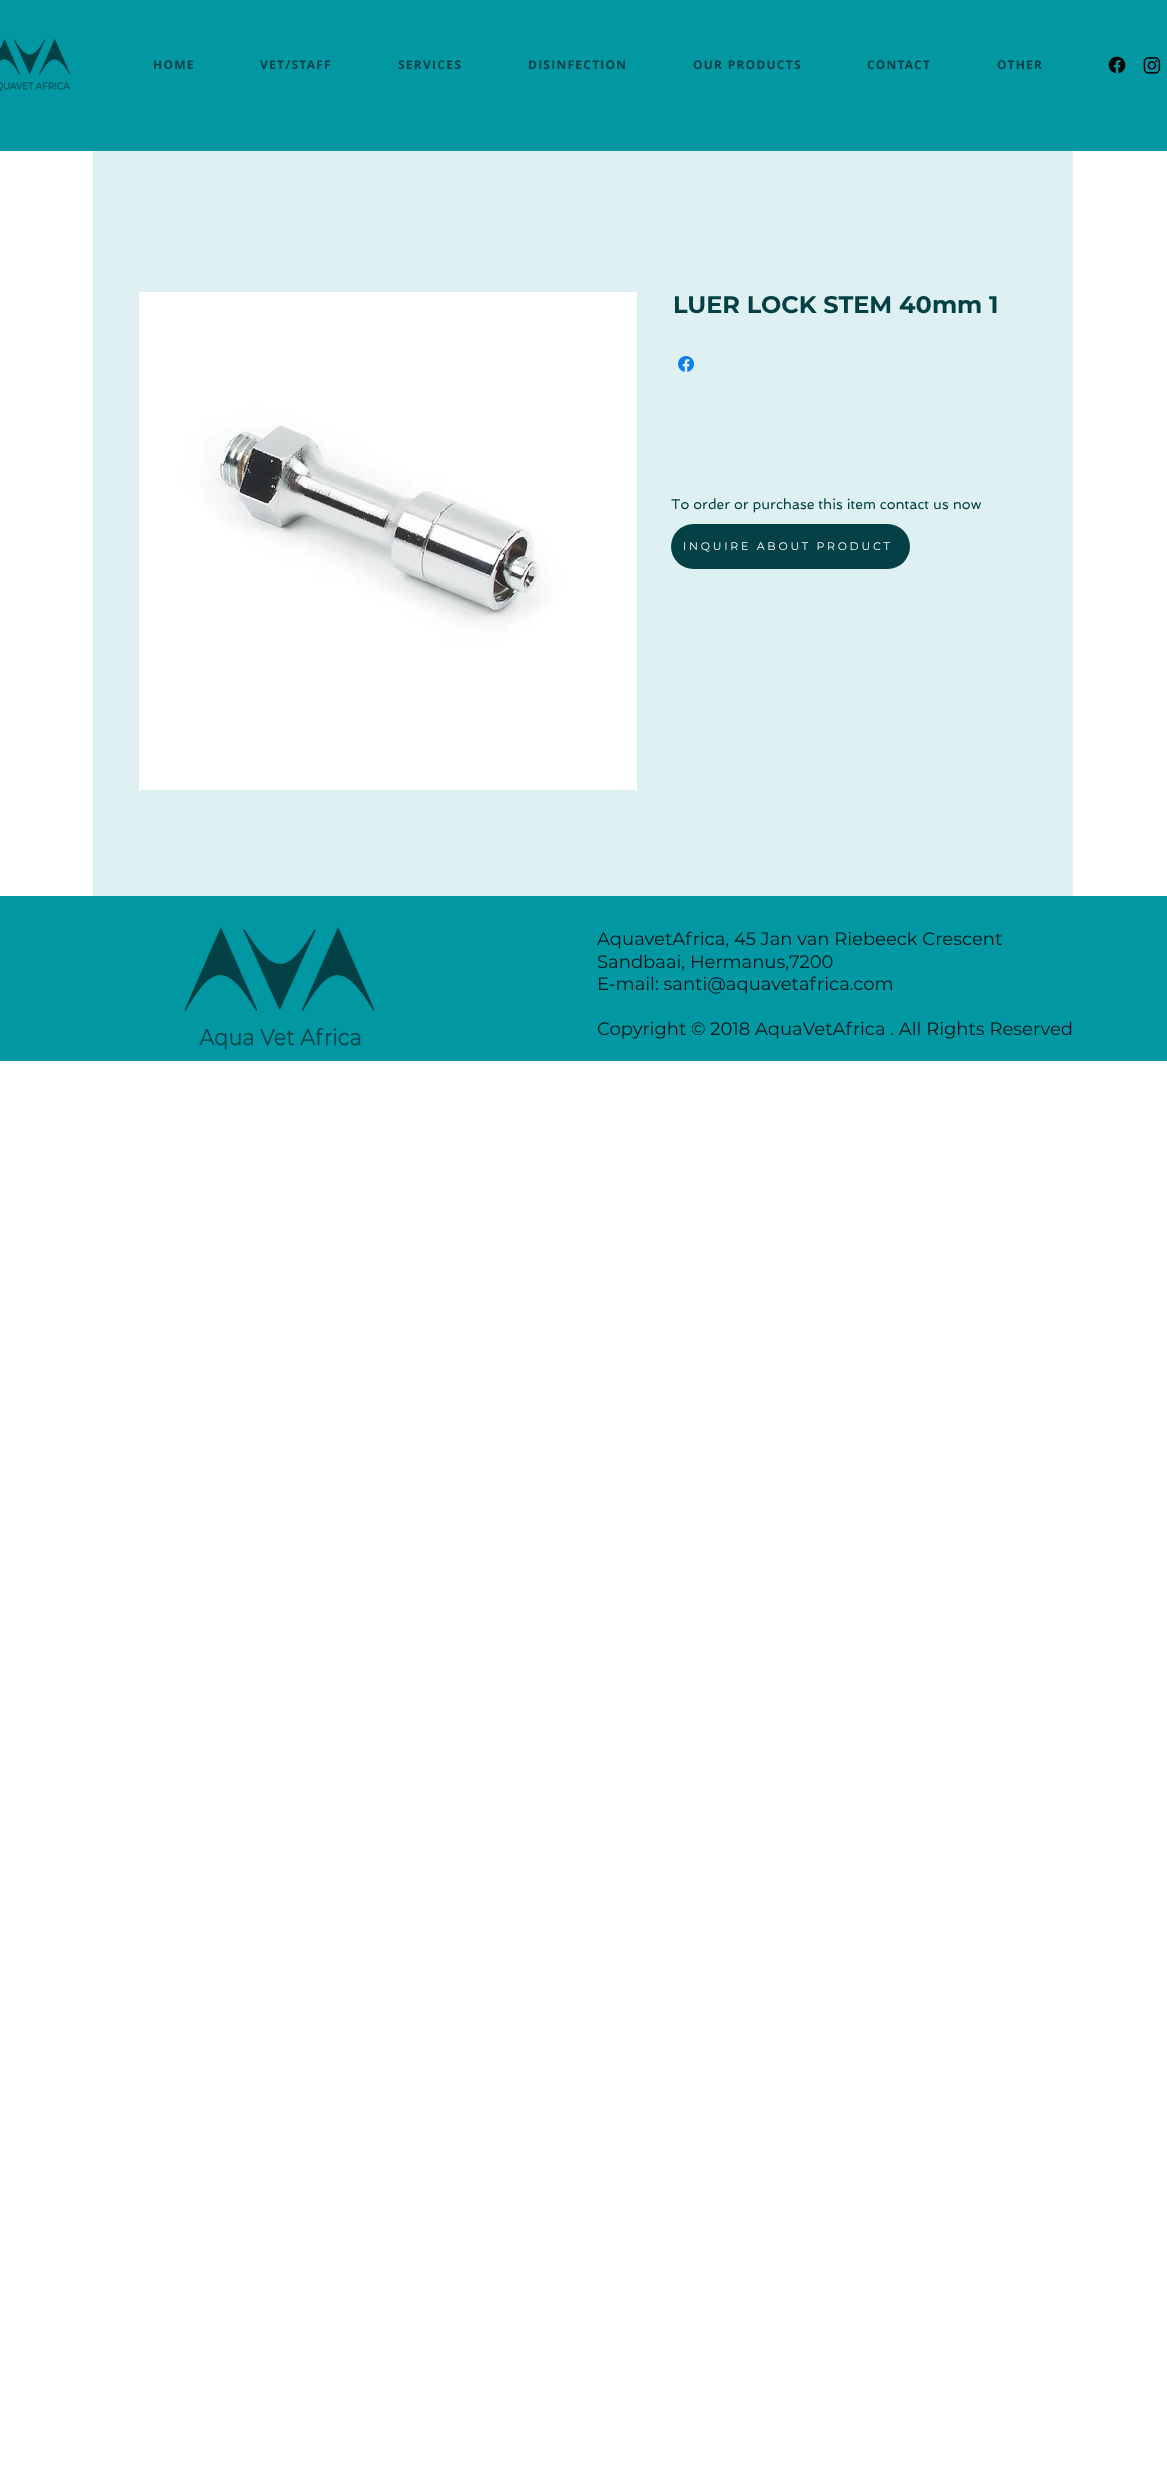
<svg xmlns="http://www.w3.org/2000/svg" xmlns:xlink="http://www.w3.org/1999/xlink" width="1167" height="2468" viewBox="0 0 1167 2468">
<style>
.cls-1{font:bold 12px Open Sans;letter-spacing:1.25px;fill:#034146}
.cls-2{font:bold 24px Montserrat;fill:#034146}
.cls-3{font:14px Spinnaker;fill:#034146}
.cls-4{font:11px Montserrat;letter-spacing:2.75px;fill:#ffffff}
.cls-5{font:18px Montserrat;fill:#001617}
</style>
<rect width="100%" height="100%" fill="#ffffff"/>
<rect fill="#0197a3" x="0" y="0" width="1167" height="151"/>
<image xlink:href="image0.png" x="0" y="39" width="71" height="52"/>
<image xlink:href="image1.png" x="1108" y="56" width="18" height="18"/>
<image xlink:href="image2.png" x="1143" y="57" width="18" height="17"/>
<rect fill="#dff0f2" x="93" y="151" width="980" height="745"/>
<image xlink:href="image3.png" x="139" y="292" width="498" height="498"/>
<image xlink:href="image4.png" x="678" y="356" width="16" height="16"/>
<rect fill="#034146" x="671" y="524" width="239" height="45" rx="22.5"/>
<rect fill="#0197a3" x="0" y="896" width="1167" height="165"/>
<image xlink:href="image5.png" x="184" y="927" width="191" height="123"/>
<text class="cls-1" x="153" y="69">HOME</text>
<text class="cls-1" x="260" y="69">VET/STAFF</text>
<text class="cls-1" x="398" y="69">SERVICES</text>
<text class="cls-1" x="528" y="69">DISINFECTION</text>
<text class="cls-1" x="693" y="69">OUR PRODUCTS</text>
<text class="cls-1" x="867" y="69">CONTACT</text>
<text class="cls-1" x="997" y="69">OTHER</text>
<text class="cls-2" x="673" y="313">LUER LOCK STEM 40mm 1</text>
<text class="cls-3" x="671" y="509">To order or purchase this item contact us now</text>
<text class="cls-4" x="683" y="550">INQUIRE ABOUT PRODUCT</text>
<text class="cls-5"><tspan x="597" y="945">AquavetAfrica, 45 Jan van Riebeeck Crescent</tspan><tspan x="597" y="968">Sandbaai, Hermanus,7200</tspan><tspan x="597" y="990">E-mail: santi@aquavetafrica.com</tspan></text>
<text class="cls-5" x="597" y="1035">Copyright © 2018 AquaVetAfrica . All Rights Reserved</text>
</svg>
